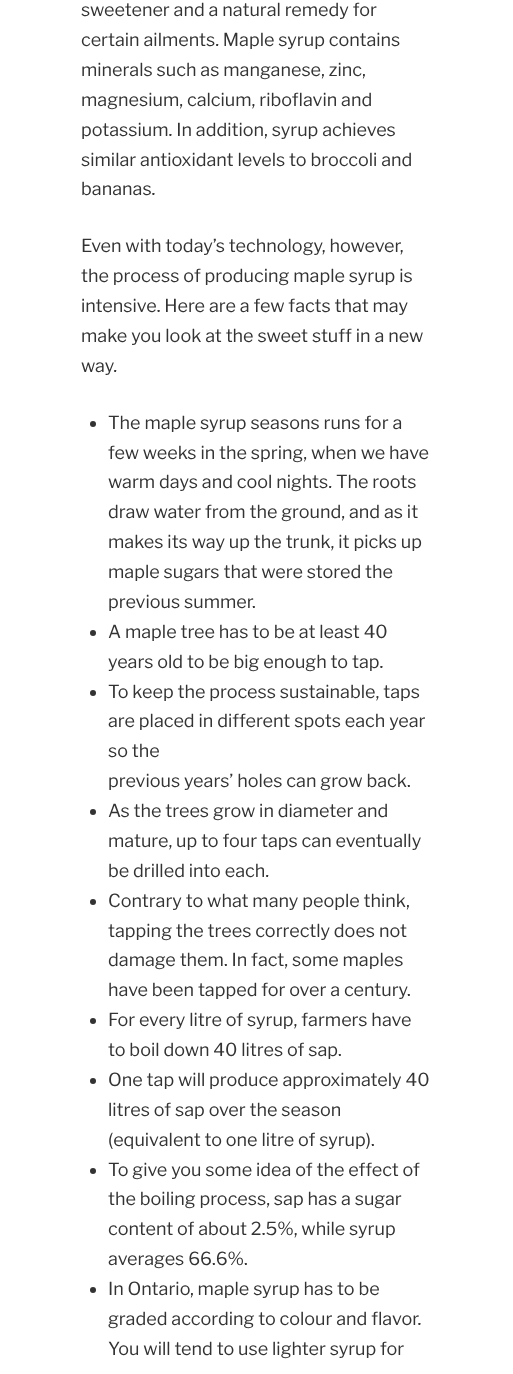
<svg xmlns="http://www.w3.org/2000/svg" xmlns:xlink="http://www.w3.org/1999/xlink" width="513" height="1374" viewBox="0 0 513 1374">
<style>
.cls-1{font:100 18px Libre Franklin;fill:#333333}
</style>
<rect width="100%" height="100%" fill="#ffffff"/>
<circle fill="#333333" cx="93" cy="424" r="3"/>
<circle fill="#333333" cx="93" cy="633" r="3"/>
<circle fill="#333333" cx="93" cy="693" r="3"/>
<circle fill="#333333" cx="93" cy="812" r="3"/>
<circle fill="#333333" cx="93" cy="902" r="3"/>
<circle fill="#333333" cx="93" cy="1021" r="3"/>
<circle fill="#333333" cx="93" cy="1081" r="3"/>
<circle fill="#333333" cx="93" cy="1171" r="3"/>
<circle fill="#333333" cx="93" cy="1290" r="3"/>
<text class="cls-1"><tspan x="81" y="16">sweetener and a natural remedy for</tspan><tspan x="81" y="46">certain ailments. Maple syrup contains</tspan><tspan x="81" y="76">minerals such as manganese, zinc,</tspan><tspan x="81" y="106">magnesium, calcium, riboflavin and</tspan><tspan x="81" y="136">potassium. In addition, syrup achieves</tspan><tspan x="81" y="166">similar antioxidant levels to broccoli and</tspan><tspan x="81" y="195">bananas.</tspan></text>
<text class="cls-1"><tspan x="81" y="252">Even with today’s technology, however,</tspan><tspan x="81" y="282">the process of producing maple syrup is</tspan><tspan x="81" y="312">intensive. Here are a few facts that may</tspan><tspan x="81" y="342">make you look at the sweet stuff in a new</tspan><tspan x="81" y="372">way.</tspan></text>
<text class="cls-1"><tspan x="108" y="429">The maple syrup seasons runs for a</tspan><tspan x="108" y="459">few weeks in the spring, when we have</tspan><tspan x="108" y="488">warm days and cool nights. The roots</tspan><tspan x="108" y="518">draw water from the ground, and as it</tspan><tspan x="108" y="548">makes its way up the trunk, it picks up</tspan><tspan x="108" y="578">maple sugars that were stored the</tspan><tspan x="108" y="608">previous summer.</tspan><tspan x="108" y="638">A maple tree has to be at least 40</tspan><tspan x="108" y="668">years old to be big enough to tap.</tspan><tspan x="108" y="698">To keep the process sustainable, taps</tspan><tspan x="108" y="727">are placed in different spots each year</tspan><tspan x="108" y="757">so the</tspan><tspan x="108" y="787">previous years’ holes can grow back.</tspan><tspan x="108" y="817">As the trees grow in diameter and</tspan><tspan x="108" y="847">mature, up to four taps can eventually</tspan><tspan x="108" y="877">be drilled into each.</tspan><tspan x="108" y="907">Contrary to what many people think,</tspan><tspan x="108" y="937">tapping the trees correctly does not</tspan><tspan x="108" y="966">damage them. In fact, some maples</tspan><tspan x="108" y="996">have been tapped for over a century.</tspan><tspan x="108" y="1026">For every litre of syrup, farmers have</tspan><tspan x="108" y="1056">to boil down 40 litres of sap.</tspan><tspan x="108" y="1086">One tap will produce approximately 40</tspan><tspan x="108" y="1116">litres of sap over the season</tspan><tspan x="108" y="1146">(equivalent to one litre of syrup).</tspan><tspan x="108" y="1176">To give you some idea of the effect of</tspan><tspan x="108" y="1205">the boiling process, sap has a sugar</tspan><tspan x="108" y="1235">content of about 2.5%, while syrup</tspan><tspan x="108" y="1265">averages 66.6%.</tspan><tspan x="108" y="1295">In Ontario, maple syrup has to be</tspan><tspan x="108" y="1325">graded according to colour and flavor.</tspan><tspan x="108" y="1355">You will tend to use lighter syrup for</tspan></text>
</svg>
